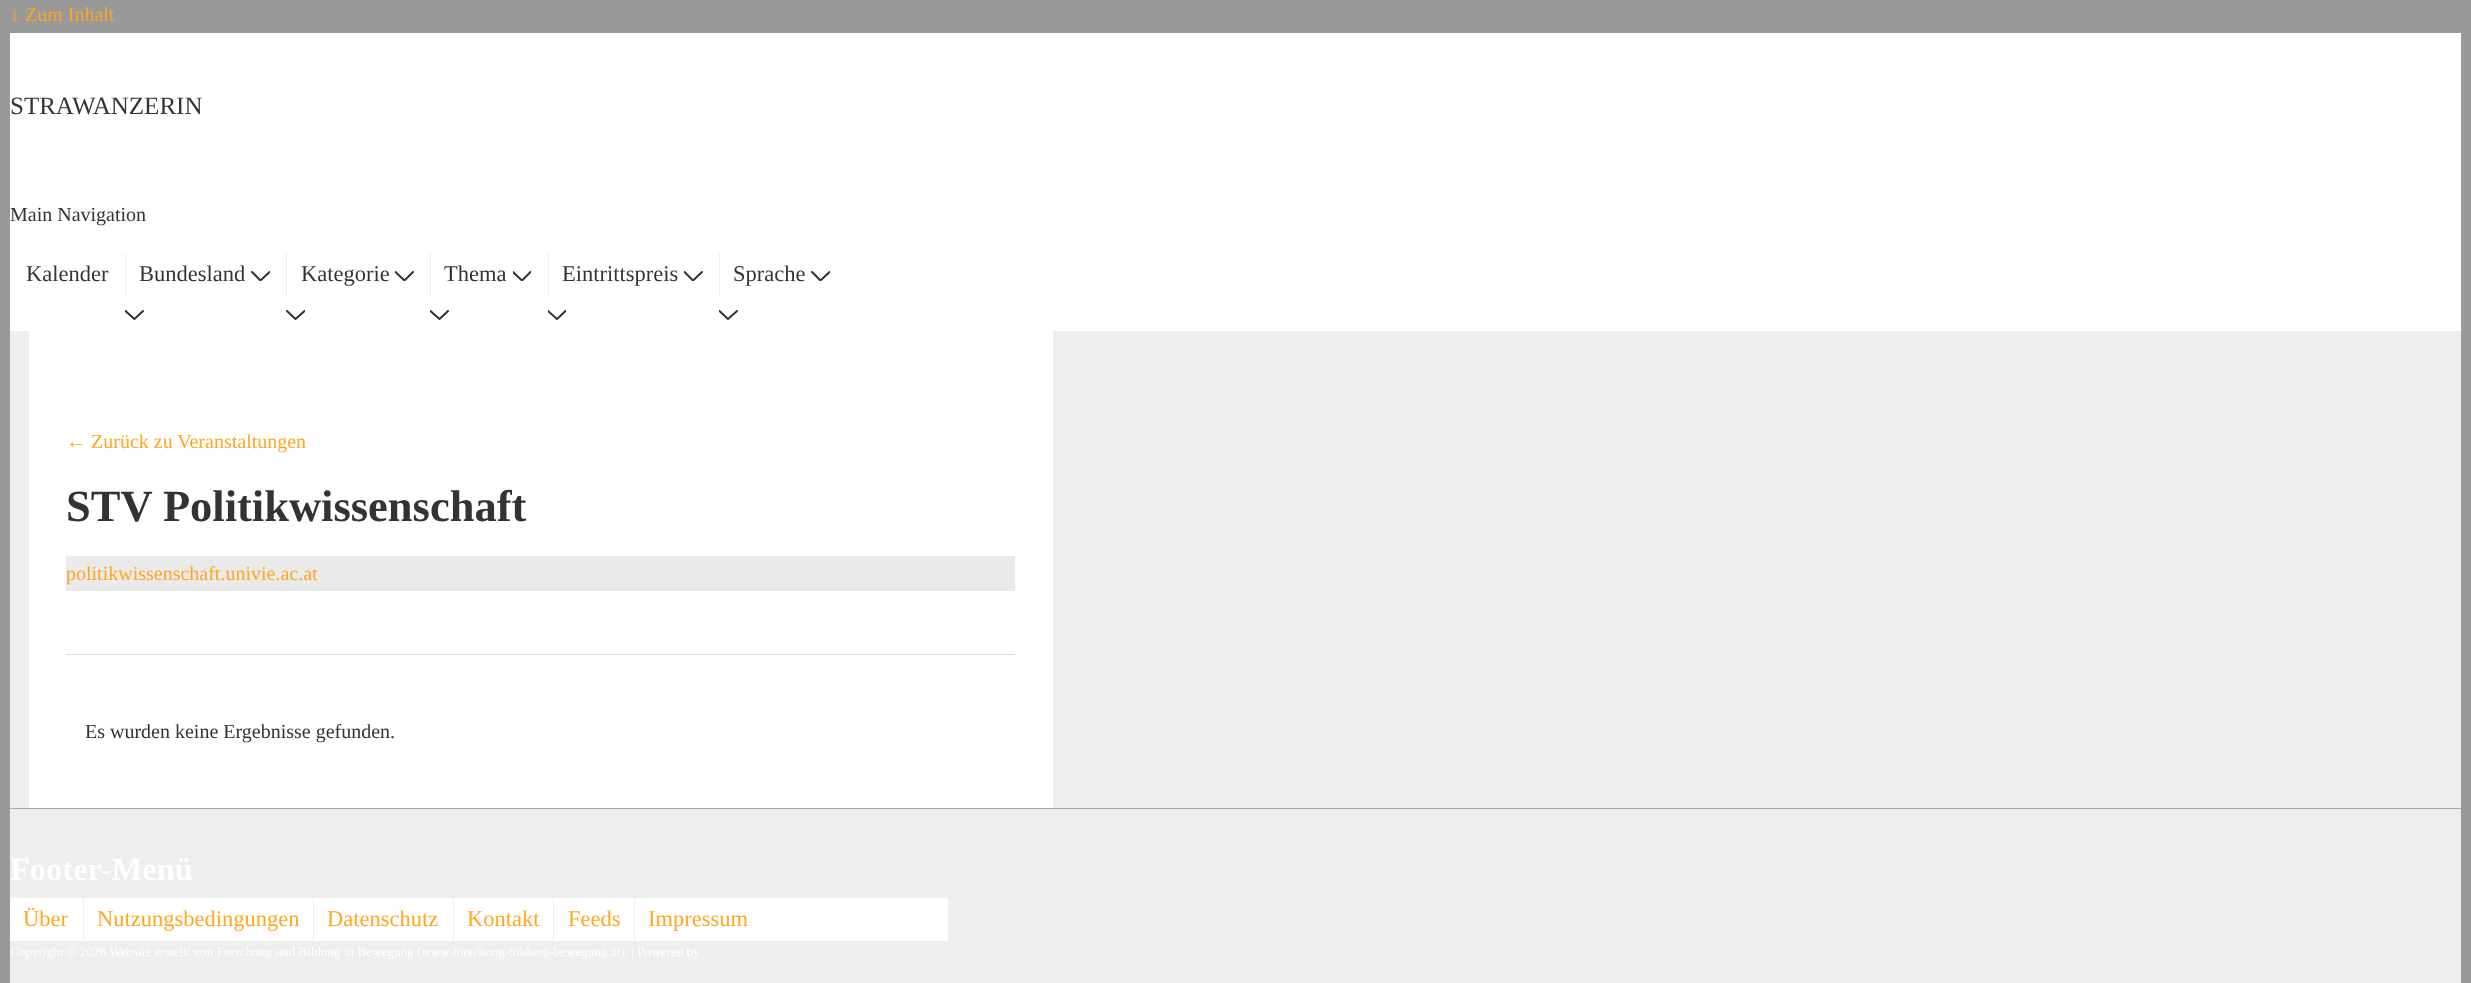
<svg xmlns="http://www.w3.org/2000/svg" xmlns:xlink="http://www.w3.org/1999/xlink" width="2471" height="983" viewBox="0 0 2471 983">
<style>
.cls-1{font:20px Liberation Serif;fill:#ffa71e}
.cls-2{font:25px Liberation Serif;fill:#333333}
.cls-3{font:20px Liberation Serif;fill:#333333}
.cls-4{font:22.5px Liberation Serif;fill:#333333}
.cls-5{font:bold 44.5px Liberation Serif;fill:#333333}
.cls-6{font:bold 32.5px Liberation Serif;fill:#ffffff}
.cls-7{font:22.5px Liberation Serif;fill:#ffa71e}
.cls-8{font:13.15px Liberation Serif;fill:#ffffff}
</style>
<defs>
<clipPath id="clip1"><rect x="251" y="271" width="19" height="10"/></clipPath>
<clipPath id="clip2"><rect x="125" y="310" width="19" height="10"/></clipPath>
<clipPath id="clip3"><rect x="395" y="271" width="19" height="10"/></clipPath>
<clipPath id="clip4"><rect x="286" y="310" width="19" height="10"/></clipPath>
<clipPath id="clip5"><rect x="513" y="271" width="18" height="10"/></clipPath>
<clipPath id="clip6"><rect x="430" y="310" width="19" height="10"/></clipPath>
<clipPath id="clip7"><rect x="684" y="271" width="19" height="10"/></clipPath>
<clipPath id="clip8"><rect x="548" y="310" width="18" height="10"/></clipPath>
<clipPath id="clip9"><rect x="811" y="271" width="19" height="10"/></clipPath>
<clipPath id="clip10"><rect x="719" y="310" width="19" height="10"/></clipPath>
</defs>
<rect width="100%" height="100%" fill="#999999"/>
<rect fill="#ffffff" x="10" y="33" width="2451" height="298"/>
<rect fill="#eeeeee" x="125" y="253" width="1" height="43"/>
<g clip-path="url(#clip1)">
<path fill="none" stroke="#333333" stroke-width="2" stroke-linecap="round" d="M252 272L260.5 280.5L269.5 272"/>
</g>
<g clip-path="url(#clip2)">
<path fill="none" stroke="#333333" stroke-width="2" stroke-linecap="round" d="M125.5 311L134.5 319L143 311"/>
</g>
<rect fill="#eeeeee" x="286" y="253" width="1" height="43"/>
<g clip-path="url(#clip3)">
<path fill="none" stroke="#333333" stroke-width="2" stroke-linecap="round" d="M395.5 272L404.5 280.5L413 272"/>
</g>
<g clip-path="url(#clip4)">
<path fill="none" stroke="#333333" stroke-width="2" stroke-linecap="round" d="M287 311L295.5 319L304.5 311"/>
</g>
<rect fill="#eeeeee" x="430" y="253" width="1" height="43"/>
<g clip-path="url(#clip5)">
<path fill="none" stroke="#333333" stroke-width="2" stroke-linecap="round" d="M513 272L522 280.5L530.5 272"/>
</g>
<g clip-path="url(#clip6)">
<path fill="none" stroke="#333333" stroke-width="2" stroke-linecap="round" d="M430.5 311L439.5 319L448 311"/>
</g>
<rect fill="#eeeeee" x="548" y="253" width="1" height="43"/>
<g clip-path="url(#clip7)">
<path fill="none" stroke="#333333" stroke-width="2" stroke-linecap="round" d="M684.5 272L693 280.5L702 272"/>
</g>
<g clip-path="url(#clip8)">
<path fill="none" stroke="#333333" stroke-width="2" stroke-linecap="round" d="M548 311L557 319L565.5 311"/>
</g>
<rect fill="#eeeeee" x="719" y="253" width="1" height="43"/>
<g clip-path="url(#clip9)">
<path fill="none" stroke="#333333" stroke-width="2" stroke-linecap="round" d="M812 272L820.5 280.5L829.5 272"/>
</g>
<g clip-path="url(#clip10)">
<path fill="none" stroke="#333333" stroke-width="2" stroke-linecap="round" d="M719.5 311L728 319L737 311"/>
</g>
<rect fill="#eeeeee" x="10" y="331" width="2451" height="477"/>
<rect fill="#ffffff" x="29" y="331" width="1024" height="477"/>
<rect fill="#dddddd" x="66" y="654" width="949" height="1"/>
<rect fill="#eaeaea" x="66" y="556" width="949" height="35"/>
<rect fill="#eeeeee" x="10" y="809" width="2451" height="174"/>
<rect fill="#aaaaaa" x="10" y="808" width="2451" height="1"/>
<rect fill="#ffffff" x="10" y="898" width="938" height="43"/>
<rect fill="#eeeeee" x="83" y="898" width="1" height="43"/>
<rect fill="#eeeeee" x="313" y="898" width="1" height="43"/>
<rect fill="#eeeeee" x="453" y="898" width="1" height="43"/>
<rect fill="#eeeeee" x="553" y="898" width="1" height="43"/>
<rect fill="#eeeeee" x="634" y="898" width="1" height="43"/>
<text class="cls-1" x="10" y="21">↓ Zum Inhalt</text>
<text class="cls-2" x="10" y="114">STRAWANZERIN</text>
<text class="cls-3" x="10" y="221">Main Navigation</text>
<text class="cls-4" x="26" y="281">Kalender</text>
<text class="cls-4" x="139" y="281">Bundesland</text>
<text class="cls-4" x="301" y="281">Kategorie</text>
<text class="cls-4" x="444" y="281">Thema</text>
<text class="cls-4" x="562" y="281">Eintrittspreis</text>
<text class="cls-4" x="733" y="281">Sprache</text>
<text class="cls-1" x="66" y="448">← Zurück zu Veranstaltungen</text>
<text class="cls-5" x="66" y="521">STV Politikwissenschaft</text>
<text class="cls-1" x="66" y="580">politikwissenschaft.univie.ac.at</text>
<text class="cls-3" x="85" y="738">Es wurden keine Ergebnisse gefunden.</text>
<text class="cls-6" x="10" y="880">Footer-Menü</text>
<text class="cls-7" x="23" y="926">Über</text>
<text class="cls-7" x="97" y="926">Nutzungsbedingungen</text>
<text class="cls-7" x="327" y="926">Datenschutz</text>
<text class="cls-7" x="467" y="926">Kontakt</text>
<text class="cls-7" x="568" y="926">Feeds</text>
<text class="cls-7" x="648" y="926">Impressum</text>
<text class="cls-8" x="10" y="956">Copyright © 2026 Website erstellt von Forschung und Bildung in Bewegung (www.forschung-bildung-bewegung.at). | Powered by</text>
</svg>
